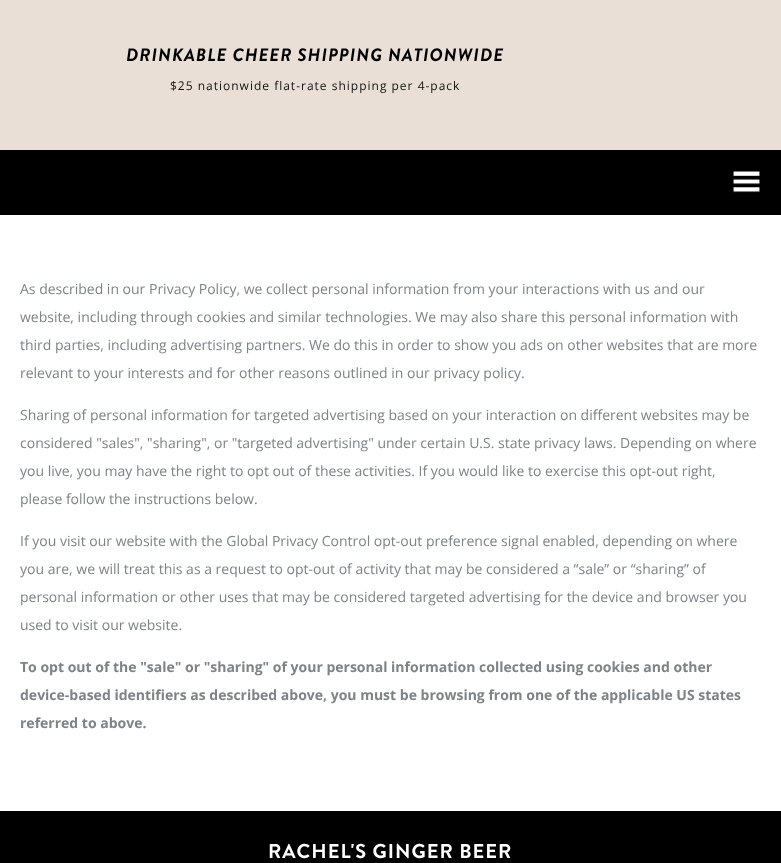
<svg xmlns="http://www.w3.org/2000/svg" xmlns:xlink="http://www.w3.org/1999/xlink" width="781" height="863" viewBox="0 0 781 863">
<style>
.cls-1{font:italic bold 18px Brandon Grotesque;letter-spacing:1px;fill:#000000}
.cls-2{font:12px Open Sans;letter-spacing:1px;fill:#111111}
.cls-3{font:14px Open Sans;fill:#7d8387}
.cls-4{font:bold 14px Open Sans;fill:#7d8387}
.cls-5{font:bold 20px Brandon Grotesque;letter-spacing:1px;fill:#ffffff}
</style>
<rect width="100%" height="100%" fill="#000000"/>
<rect fill="#e9dfd6" x="0" y="0" width="781" height="150"/>
<image xlink:href="image0.png" x="733" y="171" width="27" height="22"/>
<rect fill="#ffffff" x="0" y="215" width="781" height="596"/>
<text class="cls-1" x="126" y="61">DRINKABLE CHEER SHIPPING NATIONWIDE</text>
<text class="cls-2" x="170" y="90">$25 nationwide flat-rate shipping per 4-pack</text>
<text class="cls-3" x="20" y="294">As described in our Privacy Policy, we collect personal information from your interactions with us and our</text>
<text class="cls-3" x="20" y="322">website, including through cookies and similar technologies. We may also share this personal information with</text>
<text class="cls-3" x="20" y="350">third parties, including advertising partners. We do this in order to show you ads on other websites that are more</text>
<text class="cls-3" x="20" y="378">relevant to your interests and for other reasons outlined in our privacy policy.</text>
<text class="cls-3" x="20" y="420">Sharing of personal information for targeted advertising based on your interaction on different websites may be</text>
<text class="cls-3" x="20" y="448">considered "sales", "sharing", or "targeted advertising" under certain U.S. state privacy laws. Depending on where</text>
<text class="cls-3" x="20" y="476">you live, you may have the right to opt out of these activities. If you would like to exercise this opt-out right,</text>
<text class="cls-3" x="20" y="504">please follow the instructions below.</text>
<text class="cls-3" x="20" y="546">If you visit our website with the Global Privacy Control opt-out preference signal enabled, depending on where</text>
<text class="cls-3" x="20" y="574">you are, we will treat this as a request to opt-out of activity that may be considered a “sale” or “sharing” of</text>
<text class="cls-3" x="20" y="602">personal information or other uses that may be considered targeted advertising for the device and browser you</text>
<text class="cls-3" x="20" y="630">used to visit our website.</text>
<text class="cls-4" x="20" y="672">To opt out of the "sale" or "sharing" of your personal information collected using cookies and other</text>
<text class="cls-4" x="20" y="700">device-based identifiers as described above, you must be browsing from one of the applicable US states</text>
<text class="cls-4" x="20" y="728">referred to above.</text>
<text class="cls-5" x="268" y="858">RACHEL'S GINGER BEER</text>
</svg>
